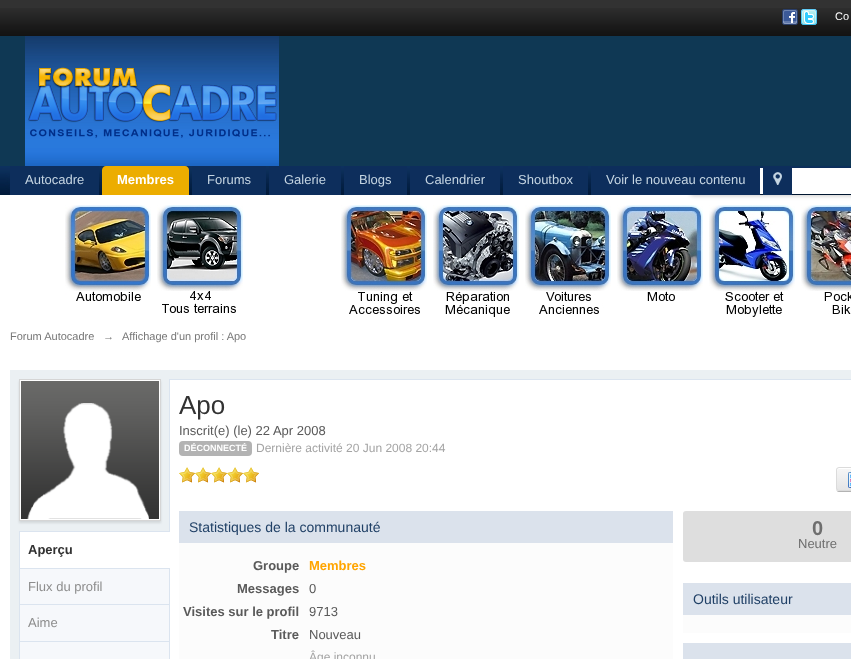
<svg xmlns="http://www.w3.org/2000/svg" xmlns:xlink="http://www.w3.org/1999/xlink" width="851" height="659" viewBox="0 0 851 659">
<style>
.cls-1{font:11px Liberation Sans;fill:#ffffff}
.cls-2{font:13px Liberation Sans;fill:#c5d5e2}
.cls-3{font:bold 13px Liberation Sans;fill:#ffffff}
.cls-4{font:11px Liberation Sans;fill:#777777}
.cls-5{font:bold 13px Liberation Sans;fill:#323232}
.cls-6{font:13px Liberation Sans;fill:#8d8d8d}
.cls-7{font:26px Liberation Sans;fill:#323232}
.cls-8{font:13px Liberation Sans;fill:#5a5a5a}
.cls-9{font:bold 9px Liberation Sans;fill:#ffffff}
.cls-10{font:12px Liberation Sans;fill:#a4a4a4}
.cls-11{font:14px Liberation Sans;fill:#204066}
.cls-12{font:bold 13px Liberation Sans;fill:#5a5a5a}
.cls-13{font:bold 13px Liberation Sans;fill:#ffa500}
.cls-14{font:bold 20px Liberation Sans;fill:#6e6e6e}
.cls-15{font:13px Liberation Sans;fill:#6e6e6e}
</style>
<defs>
<clipPath id="clip1"><rect x="836" y="467" width="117" height="24" rx="3"/></clipPath>
<linearGradient id="g1" gradientUnits="userSpaceOnUse" x1="837" y1="468" x2="837" y2="490"><stop offset="0" stop-color="#f6f6f6"/><stop offset="1" stop-color="#e5e5e5"/></linearGradient>
</defs>
<rect width="100%" height="100%" fill="#ffffff"/>
<rect fill="#323232" x="0" y="0" width="851" height="8"/>
<image xlink:href="image0.png" x="0" y="8" width="851" height="28"/>
<image xlink:href="image1.png" x="782" y="9" width="16" height="16"/>
<image xlink:href="image2.png" x="801" y="9" width="16" height="16"/>
<rect fill="#0f3854" x="0" y="36" width="851" height="130"/>
<image xlink:href="image3.png" x="25" y="36" width="254" height="130"/>
<image xlink:href="image4.png" x="0" y="166" width="851" height="29"/>
<rect fill="#000000" fill-opacity="0.2" filter="blur(2px)" x="690" y="170" width="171" height="26" rx="4"/>
<rect fill="#ffffff" x="760" y="168" width="91" height="26"/>
<rect fill="#0d2e5c" x="10" y="166" width="89" height="29"/>
<path fill="#ecad00" d="M106 166H185C187 166 189 168 189 170V195H102V170C102 168 104 166 106 166Z"/>
<rect fill="#0d2e5c" x="192" y="166" width="74" height="29"/>
<rect fill="#0d2e5c" x="269" y="166" width="72" height="29"/>
<rect fill="#0d2e5c" x="344" y="166" width="63" height="29"/>
<rect fill="#0d2e5c" x="410" y="166" width="90" height="29"/>
<rect fill="#0d2e5c" x="503" y="166" width="85" height="29"/>
<rect fill="#0d2e5c" x="591" y="166" width="169" height="29"/>
<rect fill="#0d2e5c" x="763" y="166" width="29" height="29"/>
<image xlink:href="image5.png" x="773" y="172" width="9" height="13"/>
<image xlink:href="image6.png" x="65" y="205" width="86" height="96"/>
<image xlink:href="image7.png" x="157" y="205" width="86" height="108"/>
<image xlink:href="image8.png" x="341" y="205" width="86" height="109"/>
<image xlink:href="image9.png" x="433" y="205" width="86" height="112"/>
<image xlink:href="image10.png" x="525" y="205" width="86" height="109"/>
<image xlink:href="image11.png" x="617" y="205" width="86" height="96"/>
<image xlink:href="image12.png" x="709" y="205" width="86" height="112"/>
<image xlink:href="image13.png" x="801" y="205" width="50" height="109"/>
<rect fill="#ebf0f3" x="10" y="370" width="841" height="289"/>
<rect fill="#000000" fill-opacity="0.1" filter="blur(1px)" x="19" y="381" width="142" height="142"/>
<rect fill="#ffffff" stroke="#d5d5d5" x="19.5" y="379.5" width="141" height="141"/>
<image xlink:href="image14.png" x="21" y="381" width="138" height="138"/>
<rect fill="#dbe4ef" x="19" y="531" width="150" height="1"/>
<rect fill="#dbe4ef" x="19" y="531" width="1" height="128"/>
<rect fill="#dbe4ef" x="20" y="568" width="149" height="1"/>
<rect fill="#ffffff" stroke="#dbe4ef" x="169.5" y="379.5" width="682" height="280"/>
<rect fill="#ffffff" x="20" y="532" width="150" height="36"/>
<rect fill="#f6f8fb" x="20" y="569" width="149" height="35"/>
<rect fill="#dbe4ef" x="20" y="604" width="149" height="1"/>
<rect fill="#f6f8fb" x="20" y="605" width="149" height="36"/>
<rect fill="#dbe4ef" x="20" y="641" width="149" height="1"/>
<rect fill="#f6f8fb" x="20" y="642" width="149" height="17"/>
<rect fill="#b3b3b3" x="179" y="441" width="73" height="15" rx="4"/>
<image xlink:href="image15.png" x="179" y="467" width="16" height="16"/>
<image xlink:href="image15.png" x="195" y="467" width="16" height="16"/>
<image xlink:href="image15.png" x="211" y="467" width="16" height="16"/>
<image xlink:href="image15.png" x="227" y="467" width="16" height="16"/>
<image xlink:href="image15.png" x="243" y="467" width="16" height="16"/>
<path fill="#b3b3b3" d="M836 488C836 490 837 492 839 492H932C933 492 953 497 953 488L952 490L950 491H839C837 491 836 490 836 488Z"/>
<g clip-path="url(#clip1)">
<rect fill="url(#g1)" x="836" y="468" width="15" height="22"/>
</g>
<path fill="#ffffff" d="M839 469H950C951 469 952 470 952 471C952 470 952 468 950 468H839C837 468 837 470 837 471C837 470 838 469 839 469Z"/>
<rect fill="none" stroke="#dbdbdb" x="836.5" y="467.5" width="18" height="23" rx="2.5"/>
<image xlink:href="image16.png" x="848" y="472" width="3" height="16"/>
<rect fill="#fcfcfc" x="179" y="543" width="494" height="116"/>
<rect fill="#dbe2ec" x="179" y="511" width="494" height="32"/>
<rect fill="#dedede" x="683" y="511" width="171" height="51" rx="3"/>
<rect fill="#fcfcfc" x="683" y="615" width="168" height="18"/>
<rect fill="#dbe2ec" x="683" y="583" width="168" height="32"/>
<rect fill="#dbe2ec" x="683" y="643" width="168" height="16"/>
<text class="cls-1" x="835" y="20">Co</text>
<text class="cls-2" x="25" y="184">Autocadre</text>
<text class="cls-3" x="117" y="184">Membres</text>
<text class="cls-2" x="207" y="184">Forums</text>
<text class="cls-2" x="284" y="184">Galerie</text>
<text class="cls-2" x="359" y="184">Blogs</text>
<text class="cls-2" x="425" y="184">Calendrier</text>
<text class="cls-2" x="518" y="184">Shoutbox</text>
<text class="cls-2" x="606" y="184">Voir le nouveau contenu</text>
<text class="cls-4" x="10" y="340">Forum Autocadre</text>
<text class="cls-4" x="103" y="340">→</text>
<text class="cls-4" x="122" y="340">Affichage d'un profil : Apo</text>
<text class="cls-5" x="28" y="554">Aperçu</text>
<text class="cls-6" x="28" y="591">Flux du profil</text>
<text class="cls-6" x="28" y="627">Aime</text>
<text class="cls-7" x="179" y="414">Apo</text>
<text class="cls-8" x="179" y="435">Inscrit(e) (le) 22 Apr 2008</text>
<text class="cls-9" x="184" y="451">DÉCONNECTÉ</text>
<text class="cls-10" x="256" y="452">Dernière activité 20 Jun 2008 20:44</text>
<text class="cls-11" x="189" y="532">Statistiques de la communauté</text>
<text class="cls-12" x="253" y="570">Groupe</text>
<text class="cls-13" x="309" y="570">Membres</text>
<text class="cls-12" x="237" y="593">Messages</text>
<text class="cls-8" x="309" y="593">0</text>
<text class="cls-12" x="183" y="616">Visites sur le profil</text>
<text class="cls-8" x="309" y="616">9713</text>
<text class="cls-12" x="271" y="639">Titre</text>
<text class="cls-8" x="309" y="639">Nouveau</text>
<text class="cls-10" x="309" y="661">Âge inconnu</text>
<text class="cls-14" x="812" y="535">0</text>
<text class="cls-15" x="798" y="548">Neutre</text>
<text class="cls-11" x="693" y="604">Outils utilisateur</text>
</svg>
